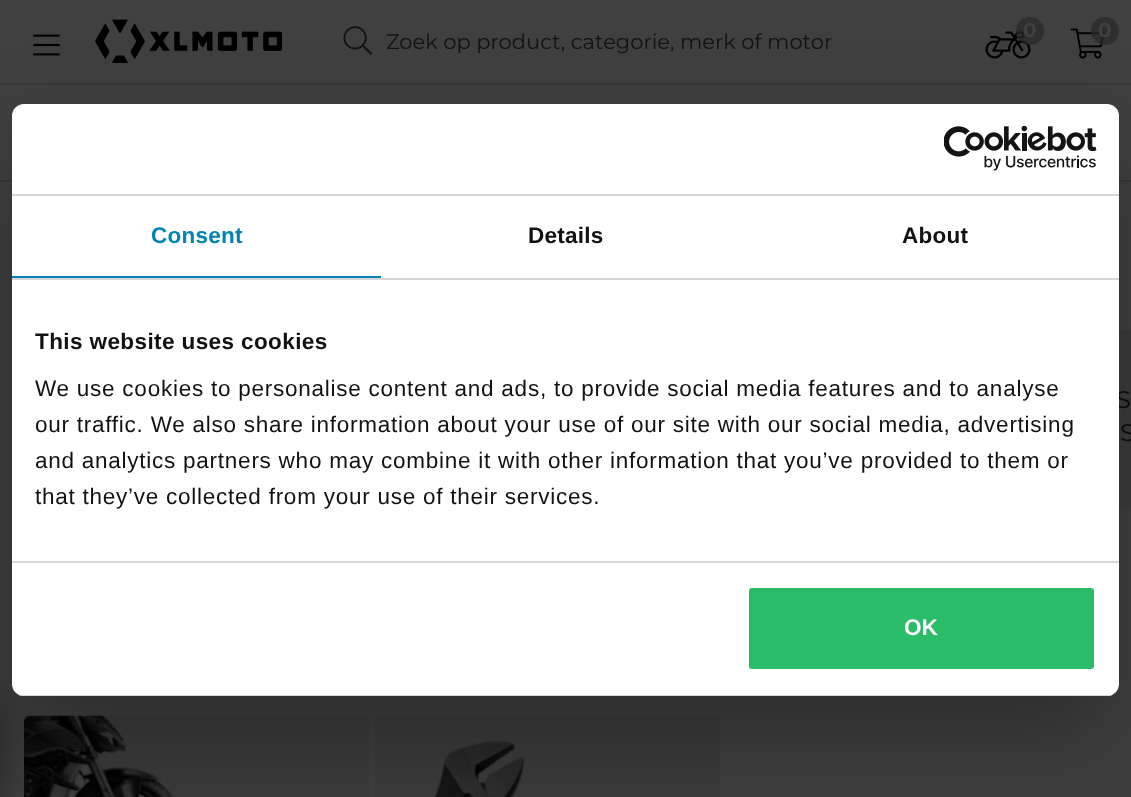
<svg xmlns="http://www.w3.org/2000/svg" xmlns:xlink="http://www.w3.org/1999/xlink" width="1131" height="797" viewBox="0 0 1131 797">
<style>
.cls-1{font:bold 20px Montserrat;fill:#404040}
.cls-2{font:21px Montserrat;fill:#111213}
.cls-3{font:24px Montserrat;fill:#080809}
.cls-4{font:bold 22.5px Liberation Sans;letter-spacing:0.25px;fill:#0084b4}
.cls-5{font:bold 22.5px Liberation Sans;letter-spacing:0.25px;fill:#111213}
.cls-6{font:bold 22.5px Liberation Sans;letter-spacing:0.4px;fill:#111213}
.cls-7{font:22.5px Liberation Sans;letter-spacing:0.75px;fill:#111213}
.cls-8{font:bold 22.5px Liberation Sans;fill:#ffffff}
</style>
<defs>
<clipPath id="clip1"><rect x="12" y="104" width="1107" height="592" rx="12"/></clipPath>
</defs>
<rect width="100%" height="100%" fill="#404040"/>
<rect fill="#393939" x="0" y="83" width="1131" height="2"/>
<image xlink:href="image0.png" x="95" y="19" width="187" height="44"/>
<image xlink:href="image1.png" x="985" y="31" width="46" height="28"/>
<circle fill="#26282a" fill-opacity="0.7" cx="1030" cy="31" r="14"/>
<image xlink:href="image2.png" x="1070" y="28" width="35" height="31"/>
<circle fill="#26282a" fill-opacity="0.7" cx="1105" cy="31" r="14"/>
<image xlink:href="image3.png" x="33" y="34" width="27" height="22"/>
<image xlink:href="image4.png" x="343" y="26" width="29" height="29"/>
<image xlink:href="image5.png" x="24" y="715" width="345" height="82"/>
<rect fill="#000000" fill-opacity="0.4" filter="blur(19px)" x="-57" y="698" width="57" height="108"/>
<rect fill="#383838" x="0" y="180" width="1131" height="2"/>
<rect fill="#3c3c3d" x="1119" y="330" width="12" height="177"/>
<image xlink:href="image6.png" x="375" y="715" width="345" height="82"/>
<rect fill="#000000" fill-opacity="0.3" filter="blur(51px)" x="12" y="152" width="1107" height="592" rx="12"/>
<text class="cls-1" x="1023" y="37">0</text>
<text class="cls-1" x="1098" y="37">0</text>
<text class="cls-2" x="386" y="49">Zoek op product, categorie, merk of motor</text>
<text class="cls-3" x="1116" y="408">S</text>
<text class="cls-3" x="1120" y="441">S</text>
<rect fill="#ffffff" x="12" y="104" width="1107" height="592" rx="12"/>
<rect fill="#d6d6d6" x="12" y="194" width="1107" height="2"/>
<image xlink:href="image7.png" x="944" y="126" width="153" height="45"/>
<rect fill="#d6d6d6" x="12" y="278" width="1107" height="2"/>
<rect fill="#0084b4" x="12" y="276" width="369" height="2"/>
<text class="cls-4" x="151" y="243">Consent</text>
<text class="cls-5" x="528" y="243">Details</text>
<text class="cls-5" x="902" y="243">About</text>
<rect fill="#d6d6d6" x="12" y="561" width="1107" height="2"/>
<text class="cls-6" x="35" y="349">This website uses cookies</text>
<text class="cls-7"><tspan x="35" y="396">We use cookies to personalise content and ads, to provide social media features and to analyse</tspan><tspan x="35" y="432">our traffic. We also share information about your use of our site with our social media, advertising</tspan><tspan x="35" y="468">and analytics partners who may combine it with other information that you’ve provided to them or</tspan><tspan x="35" y="504">that they’ve collected from your use of their services.</tspan></text>
<g clip-path="url(#clip1)">
<rect fill="#d6d6d6" x="12" y="695" width="1107" height="1"/>
</g>
<rect fill="#2bbc68" stroke="#ffffff" stroke-width="3" x="747.5" y="586.5" width="348" height="84" rx="4.5"/>
<text class="cls-8" x="904" y="635">OK</text>
</svg>
